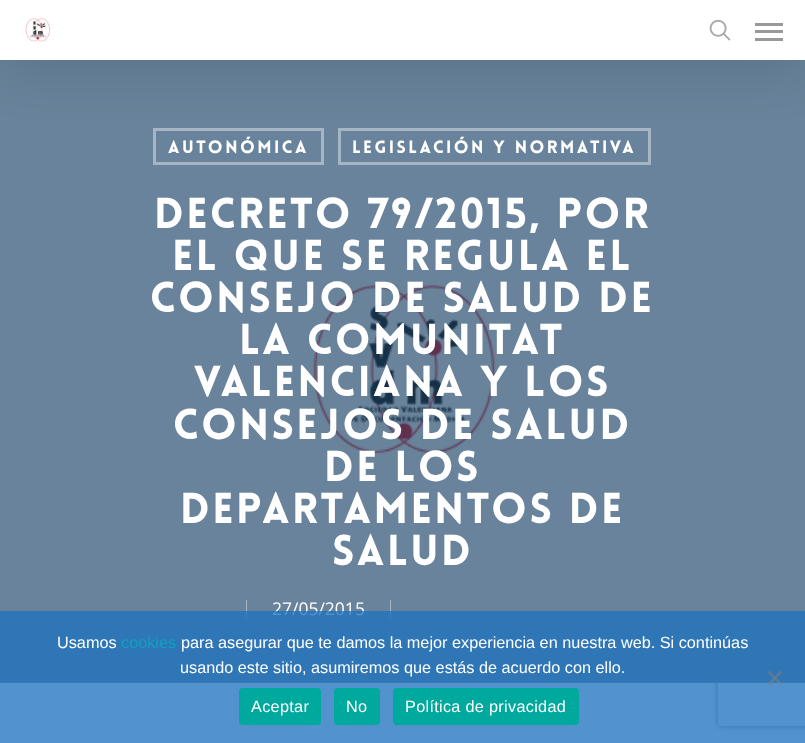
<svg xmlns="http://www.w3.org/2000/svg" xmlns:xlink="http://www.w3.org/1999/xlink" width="805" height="743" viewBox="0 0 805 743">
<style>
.cls-1{font:900 17.5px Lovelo;letter-spacing:2.5px;fill:#ffffff}
.cls-2{font:900 42.25px Lovelo;letter-spacing:2.5px;fill:#ffffff}
.cls-3{font:17.5px Open Sans;fill:#ffffff}
.cls-4{font:16.25px Liberation Sans;fill:#ffffff}
.cls-5{font:16.25px Liberation Sans;fill:#0ea2c2}
.cls-6{font:16.25px Liberation Sans;letter-spacing:0.3px;fill:#ffffff}
</style>
<defs>
<clipPath id="clip1"><path d="M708 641H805V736H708ZM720.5 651H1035.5C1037 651 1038 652 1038 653.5V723.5C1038 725 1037 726 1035.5 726H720.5C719 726 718 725 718 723.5V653.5C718 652 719 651 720.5 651Z" clip-rule="evenodd"/></clipPath>
</defs>
<rect width="100%" height="100%" fill="#ffffff"/>
<rect fill="#a5a5a5" x="0" y="682" width="805" height="1"/>
<image xlink:href="image2.png" x="0" y="60" width="805" height="623"/>
<rect fill="none" stroke="#a5b5c3" stroke-width="3" x="154.5" y="129.5" width="168" height="34"/>
<rect fill="none" stroke="#a5b5c3" stroke-width="3" x="339.5" y="129.5" width="310" height="34"/>
<rect fill="#000000" fill-opacity="0.15" filter="blur(28px)" x="0" y="4" width="805" height="60"/>
<rect fill="#ffffff" x="0" y="0" width="805" height="60"/>
<image xlink:href="image0.png" x="25" y="18" width="25" height="24"/>
<image xlink:href="image1.png" x="709" y="19" width="22" height="22"/>
<rect fill="#999999" x="755" y="23" width="28" height="3"/>
<rect fill="#999999" x="755" y="38" width="28" height="3"/>
<rect fill="#999999" x="755" y="30" width="28" height="3"/>
<rect fill="#a5b5c3" x="246" y="600" width="1" height="18"/>
<rect fill="#a5b5c3" x="390" y="600" width="1" height="18"/>
<g clip-path="url(#clip1)">
<rect fill="#808080" filter="blur(3px)" x="718" y="651" width="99" height="75" rx="2.5"/>
</g>
<text class="cls-1" x="168" y="153">Autonómica</text>
<text class="cls-1" x="352" y="153">Legislación y Normativa</text>
<text class="cls-2" x="154" y="228">DECRETO 79/2015, por</text>
<text class="cls-2" x="172" y="270">el que se regula el</text>
<text class="cls-2" x="150" y="312">Consejo de Salud de</text>
<text class="cls-2" x="239" y="354">la Comunitat</text>
<text class="cls-2" x="194" y="396">Valenciana y los</text>
<text class="cls-2" x="173" y="439">consejos de salud</text>
<text class="cls-2" x="324" y="481">de los</text>
<text class="cls-2" x="180" y="523">departamentos de</text>
<text class="cls-2" x="332" y="565">salud</text>
<text class="cls-3" x="272" y="615">27/05/2015</text>
<rect fill="#1e73be" fill-opacity="0.77" x="0" y="611" width="805" height="132"/>
<text class="cls-4" x="57" y="648">Usamos</text>
<text class="cls-5" x="121" y="648">cookies</text>
<text class="cls-4" x="181" y="648">para asegurar que te damos la mejor experiencia en nuestra web. Si continúas</text>
<text class="cls-4" x="180" y="673">usando este sitio, asumiremos que estás de acuerdo con ello.</text>
<path fill="#808080" fill-opacity="0.5" d="M780.5 670.5L782.5 672.5L769.5 685.5L767.5 684Z"/>
<path fill="#808080" fill-opacity="0.5" d="M767.5 672.5L769.5 670.5L782.5 684L780.5 685.5Z"/>
<rect fill="#00a99d" x="239" y="688" width="82" height="37" rx="4"/>
<text class="cls-6" x="251" y="712">Aceptar</text>
<rect fill="#00a99d" x="334" y="688" width="46" height="37" rx="4"/>
<text class="cls-6" x="346" y="712">No</text>
<rect fill="#00a99d" x="393" y="688" width="186" height="37" rx="4"/>
<text class="cls-6" x="405" y="712">Política de privacidad</text>
</svg>
